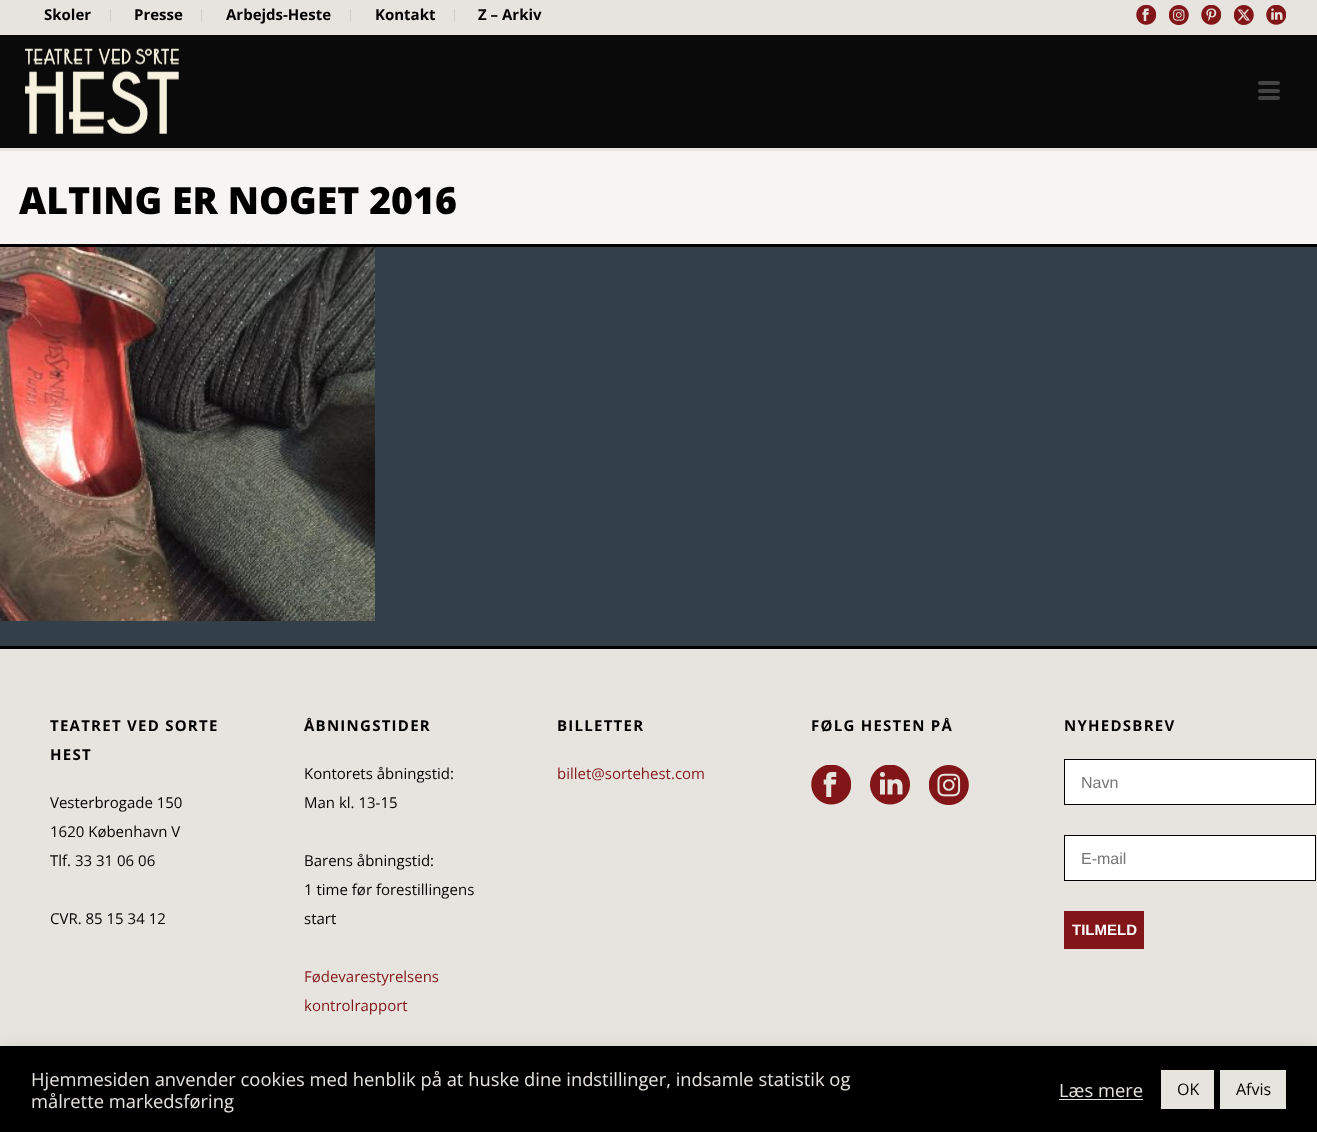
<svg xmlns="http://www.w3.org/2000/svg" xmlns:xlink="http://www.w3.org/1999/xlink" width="1317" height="1132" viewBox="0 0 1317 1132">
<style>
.cls-1{font:bold 15px Open Sans;fill:#000000}
.cls-2{font:800 37.5px Open Sans;fill:#000000}
.cls-3{font:bold 15px Open Sans;letter-spacing:1.25px;fill:#000000}
.cls-4{font:15px Open Sans;fill:#000000}
.cls-5{font:15px Open Sans;fill:#821517}
.cls-6{font:16px Liberation Sans;fill:#757575}
.cls-7{font:bold 15px Liberation Sans;fill:#ffffff}
.cls-8{font:18.35px Open Sans;fill:#e7e4df}
.cls-9{font:16px Open Sans;fill:#000000}
</style>
<rect width="100%" height="100%" fill="#344049"/>
<rect fill="#f7f5f3" x="0" y="151" width="1317" height="93"/>
<rect fill="#000000" x="0" y="244" width="1317" height="3"/>
<rect fill="#e7e4df" x="0" y="0" width="1317" height="35"/>
<rect fill="#d2d0cc" x="110" y="9" width="1" height="12"/>
<rect fill="#d2d0cc" x="201" y="9" width="1" height="12"/>
<rect fill="#d2d0cc" x="350" y="9" width="1" height="12"/>
<rect fill="#d2d0cc" x="454" y="9" width="1" height="12"/>
<image xlink:href="image0.png" x="1136" y="5" width="20" height="20"/>
<image xlink:href="image1.png" x="1169" y="5" width="20" height="20"/>
<image xlink:href="image2.png" x="1201" y="5" width="20" height="20"/>
<image xlink:href="image3.png" x="1234" y="5" width="20" height="20"/>
<image xlink:href="image4.png" x="1266" y="5" width="20" height="20"/>
<rect fill="#e7e4df" x="0" y="148" width="1317" height="3"/>
<rect fill="#0a0a0a" x="0" y="35" width="1317" height="113"/>
<image xlink:href="image5.png" x="25" y="48" width="154" height="86"/>
<rect fill="#444444" x="1258" y="81" width="22" height="4" rx="2"/>
<rect fill="#444444" x="1258" y="89" width="22" height="4" rx="2"/>
<rect fill="#444444" x="1258" y="96" width="22" height="4" rx="2"/>
<image xlink:href="image6.png" x="0" y="247" width="375" height="374"/>
<rect fill="#e7e4df" x="0" y="649" width="1317" height="397"/>
<rect fill="#000000" x="0" y="646" width="1317" height="3"/>
<image xlink:href="image7.png" x="811" y="765" width="40" height="40"/>
<image xlink:href="image8.png" x="870" y="765" width="40" height="40"/>
<image xlink:href="image9.png" x="929" y="765" width="40" height="40"/>
<rect fill="#ffffff" stroke="#000000" x="1064.5" y="759.5" width="251" height="45"/>
<rect fill="#ffffff" stroke="#000000" x="1064.5" y="835.5" width="251" height="45"/>
<rect fill="#821517" x="1064" y="911" width="80" height="38"/>
<rect fill="#acabab" fill-opacity="0.3" filter="blur(6px)" x="0" y="1045" width="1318" height="86"/>
<rect fill="#000000" x="0" y="1046" width="1317" height="86"/>
<rect fill="#e7e4df" x="1059" y="1099" width="84" height="1"/>
<rect fill="#e7e4df" x="1161" y="1070" width="53" height="39"/>
<rect fill="#e6e4de" x="1220" y="1070" width="66" height="39"/>
<text class="cls-1" x="44" y="20">Skoler</text>
<text class="cls-1" x="134" y="20">Presse</text>
<text class="cls-1" x="226" y="20">Arbejds-Heste</text>
<text class="cls-1" x="375" y="20">Kontakt</text>
<text class="cls-1" x="478" y="20">Z – Arkiv</text>
<text class="cls-2" x="19" y="214">ALTING ER NOGET 2016</text>
<text class="cls-3"><tspan x="50" y="731">TEATRET VED SORTE</tspan><tspan x="50" y="760">HEST</tspan></text>
<text class="cls-4"><tspan x="50" y="808">Vesterbrogade 150</tspan><tspan x="50" y="837">1620 København V</tspan><tspan x="50" y="866">Tlf. 33 31 06 06</tspan></text>
<text class="cls-4" x="50" y="924">CVR. 85 15 34 12</text>
<text class="cls-3" x="304" y="731">ÅBNINGSTIDER</text>
<text class="cls-4"><tspan x="304" y="779">Kontorets åbningstid:</tspan><tspan x="304" y="808">Man kl. 13-15</tspan></text>
<text class="cls-4"><tspan x="304" y="866">Barens åbningstid:</tspan><tspan x="304" y="895">1 time før forestillingens</tspan><tspan x="304" y="924">start</tspan></text>
<text class="cls-5"><tspan x="304" y="982">Fødevarestyrelsens</tspan><tspan x="304" y="1011">kontrolrapport</tspan></text>
<text class="cls-3" x="557" y="731">BILLETTER</text>
<text class="cls-5" x="557" y="779">billet@sortehest.com</text>
<text class="cls-3" x="811" y="731">FØLG HESTEN PÅ</text>
<text class="cls-3" x="1064" y="731">NYHEDSBREV</text>
<text class="cls-6" x="1081" y="788">Navn</text>
<text class="cls-6" x="1081" y="864">E-mail</text>
<text class="cls-7" x="1072" y="935">TILMELD</text>
<text class="cls-8"><tspan x="31" y="1086">Hjemmesiden anvender cookies med henblik på at huske dine indstillinger, indsamle statistik og</tspan><tspan x="31" y="1108">målrette markedsføring</tspan></text>
<text class="cls-8" x="1059" y="1097">Læs mere</text>
<text class="cls-9" x="1177" y="1095">OK</text>
<text class="cls-9" x="1236" y="1095">Afvis</text>
</svg>
